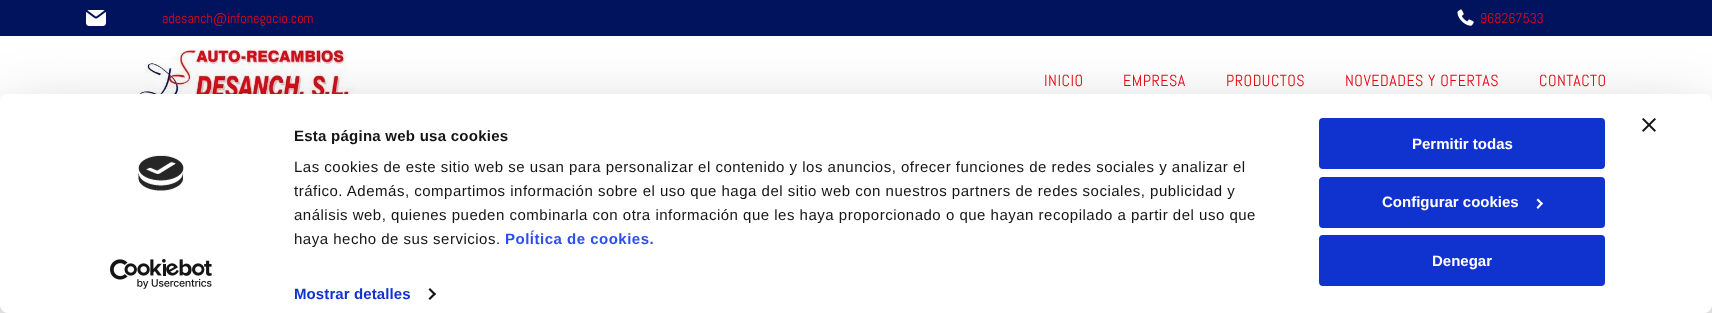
<svg xmlns="http://www.w3.org/2000/svg" xmlns:xlink="http://www.w3.org/1999/xlink" width="1712" height="313" viewBox="0 0 1712 313">
<style>
.cls-1{font:14px Abel;fill:#e20a17}
.cls-2{font:16px Abel;letter-spacing:0.5px;fill:#e20a17}
.cls-3{font:bold 15px Liberation Sans;letter-spacing:0.25px;fill:#141414}
.cls-4{font:15px Liberation Sans;letter-spacing:0.5px;fill:#141414}
.cls-5{font:bold 15px Liberation Sans;letter-spacing:0.5px;fill:#2a4eef}
.cls-6{font:bold 15px Liberation Sans;letter-spacing:0.1px;fill:#1032cf}
.cls-7{font:bold 15px Liberation Sans;fill:#ffffff}
</style>
<rect width="100%" height="100%" fill="#ffffff"/>
<rect fill="#01135d" x="0" y="0" width="1712" height="36"/>
<image xlink:href="image0.png" x="86" y="10" width="20" height="16"/>
<image xlink:href="image1.png" x="1457" y="9" width="17" height="17"/>
<image xlink:href="image2.png" x="136" y="48" width="220" height="46"/>
<rect fill="#000000" fill-opacity="0.3" filter="blur(35px)" x="0" y="124" width="1712" height="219" rx="8"/>
<rect fill="#ffffff" x="0" y="94" width="1712" height="219" rx="8"/>
<image xlink:href="image3.png" x="1642" y="118" width="14" height="14"/>
<image xlink:href="image4.png" x="138" y="155" width="46" height="36"/>
<image xlink:href="image5.png" x="110" y="259" width="102" height="30"/>
<path fill="#141414" d="M430 288L436 294L434.5 295.5L428.5 289.5Z"/>
<path fill="#141414" d="M434.5 292.5L436 294L430 300L428.5 298.5Z"/>
<rect fill="#1032cf" stroke="#1032cf" stroke-width="2" x="1320" y="119" width="284" height="49" rx="3"/>
<rect fill="#1032cf" stroke="#1032cf" stroke-width="2" x="1320" y="178" width="284" height="49" rx="3"/>
<path fill="#ffffff" d="M1538 198.5L1543 203.5L1541.5 205L1536.5 200Z"/>
<path fill="#ffffff" d="M1541.5 202L1543 203.5L1538 209L1536.5 207.5Z"/>
<rect fill="#1032cf" stroke="#1032cf" stroke-width="2" x="1320" y="236" width="284" height="49" rx="3"/>
<text class="cls-1" x="162" y="23">adesanch@infonegocio.com</text>
<text class="cls-1" x="1480" y="23">968267533</text>
<text class="cls-2" x="1044" y="86">INICIO</text>
<text class="cls-2" x="1123" y="86">EMPRESA</text>
<text class="cls-2" x="1226" y="86">PRODUCTOS</text>
<text class="cls-2" x="1345" y="86">NOVEDADES Y OFERTAS</text>
<text class="cls-2" x="1539" y="86">CONTACTO</text>
<text class="cls-3" x="294" y="141">Esta página web usa cookies</text>
<text class="cls-4"><tspan x="294" y="172">Las cookies de este sitio web se usan para personalizar el contenido y los anuncios, ofrecer funciones de redes sociales y analizar el</tspan><tspan x="294" y="196">tráfico. Además, compartimos información sobre el uso que haga del sitio web con nuestros partners de redes sociales, publicidad y</tspan><tspan x="294" y="220">análisis web, quienes pueden combinarla con otra información que les haya proporcionado o que hayan recopilado a partir del uso que</tspan><tspan x="294" y="244">haya hecho de sus servicios.</tspan></text>
<text class="cls-5" x="505" y="244">Política de cookies.</text>
<text class="cls-6" x="294" y="299">Mostrar detalles</text>
<text class="cls-7" x="1412" y="149">Permitir todas</text>
<text class="cls-7" x="1382" y="207">Configurar cookies</text>
<text class="cls-7" x="1432" y="266">Denegar</text>
</svg>
